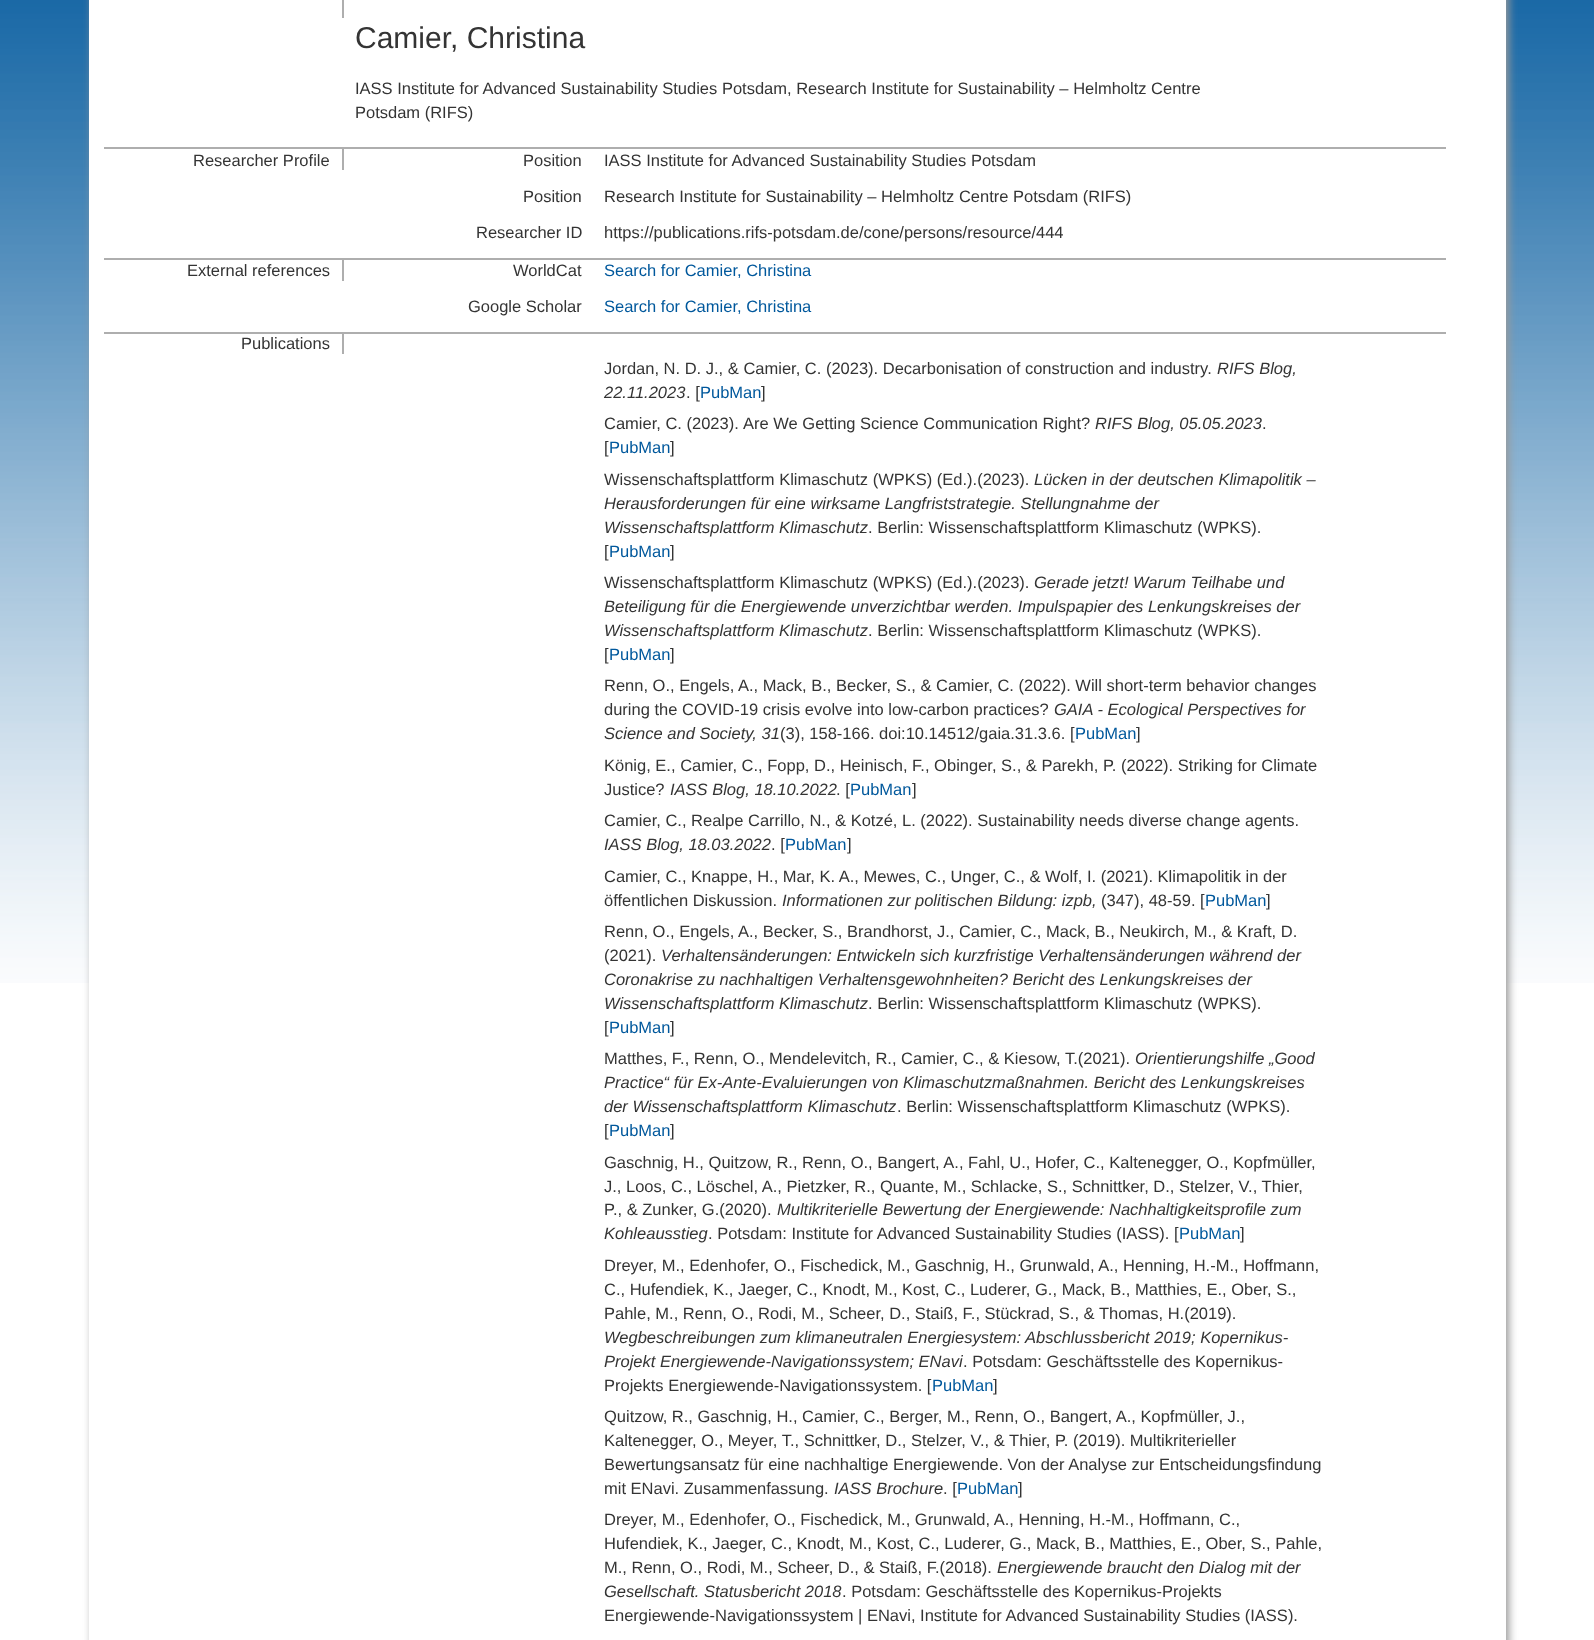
<svg xmlns="http://www.w3.org/2000/svg" xmlns:xlink="http://www.w3.org/1999/xlink" width="1594" height="1640" viewBox="0 0 1594 1640">
<style>
.cls-1{font:30px Liberation Sans;fill:#343434}
.cls-2{font:16.5px Liberation Sans;fill:#343434}
.cls-3{font:16.5px Liberation Sans;fill:#00589c}
.cls-4{font:italic 16.5px Liberation Sans;fill:#343434}
</style>
<rect width="100%" height="100%" fill="#ffffff"/>
<image xlink:href="image0.png" x="0" y="0" width="1594" height="983"/>
<rect fill="#999999" filter="blur(4.5px)" x="92" y="-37" width="1417" height="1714" rx="23"/>
<rect fill="#ffffff" x="89" y="0" width="1417" height="1640"/>
<rect fill="#aeaeae" x="342" y="0" width="2" height="18"/>
<rect fill="#aeaeae" x="104" y="147" width="1342" height="2"/>
<rect fill="#aeaeae" x="342" y="149" width="2" height="21"/>
<rect fill="#aeaeae" x="104" y="258" width="1342" height="2"/>
<rect fill="#aeaeae" x="342" y="260" width="2" height="21"/>
<rect fill="#aeaeae" x="104" y="332" width="1342" height="2"/>
<rect fill="#aeaeae" x="342" y="333" width="2" height="21"/>
<text class="cls-1" x="355" y="48">Camier, Christina</text>
<text class="cls-2"><tspan x="355" y="94">IASS Institute for Advanced Sustainability Studies Potsdam, Research Institute for Sustainability – Helmholtz Centre</tspan><tspan x="355" y="118">Potsdam (RIFS)</tspan></text>
<text class="cls-2" x="193" y="166">Researcher Profile</text>
<text class="cls-2" x="523" y="166">Position</text>
<text class="cls-2" x="604" y="166">IASS Institute for Advanced Sustainability Studies Potsdam</text>
<text class="cls-2" x="523" y="202">Position</text>
<text class="cls-2" x="604" y="202">Research Institute for Sustainability – Helmholtz Centre Potsdam (RIFS)</text>
<text class="cls-2" x="476" y="238">Researcher ID</text>
<text class="cls-2" x="604" y="238">https://publications.rifs-potsdam.de/cone/persons/resource/444</text>
<text class="cls-2" x="187" y="276">External references</text>
<text class="cls-2" x="513" y="276">WorldCat</text>
<text class="cls-3" x="604" y="276">Search for Camier, Christina</text>
<text class="cls-2" x="468" y="312">Google Scholar</text>
<text class="cls-3" x="604" y="312">Search for Camier, Christina</text>
<text class="cls-2" x="241" y="349">Publications</text>
<text class="cls-2" x="604" y="374">Jordan, N. D. J., &amp; Camier, C. (2023). Decarbonisation of construction and industry.</text>
<text class="cls-4" x="1217" y="374">RIFS Blog,</text>
<text class="cls-4" x="604" y="398">22.11.2023</text>
<text class="cls-2" x="686" y="398">. [</text>
<text class="cls-3" x="700" y="398">PubMan</text>
<text class="cls-2" x="761" y="398">]</text>
<text class="cls-2" x="604" y="429">Camier, C. (2023).</text>
<text class="cls-2" x="743" y="429">Are We Getting Science Communication Right?</text>
<text class="cls-4" x="1095" y="429">RIFS Blog, 05.05.2023</text>
<text class="cls-2" x="1262" y="429">.</text>
<text class="cls-2" x="604" y="453">[</text>
<text class="cls-3" x="609" y="453">PubMan</text>
<text class="cls-2" x="670" y="453">]</text>
<text class="cls-2" x="604" y="485">Wissenschaftsplattform Klimaschutz (WPKS) (Ed.).(2023).</text>
<text class="cls-4" x="1034" y="485">Lücken in der deutschen Klimapolitik –</text>
<text class="cls-4"><tspan x="604" y="509">Herausforderungen für eine wirksame Langfriststrategie. Stellungnahme der</tspan><tspan x="604" y="533">Wissenschaftsplattform Klimaschutz</tspan></text>
<text class="cls-2" x="868" y="533">. Berlin: Wissenschaftsplattform Klimaschutz (WPKS).</text>
<text class="cls-2" x="604" y="557">[</text>
<text class="cls-3" x="609" y="557">PubMan</text>
<text class="cls-2" x="670" y="557">]</text>
<text class="cls-2" x="604" y="588">Wissenschaftsplattform Klimaschutz (WPKS) (Ed.).(2023).</text>
<text class="cls-4" x="1034" y="588">Gerade jetzt! Warum Teilhabe und</text>
<text class="cls-4"><tspan x="604" y="612">Beteiligung für die Energiewende unverzichtbar werden. Impulspapier des Lenkungskreises der</tspan><tspan x="604" y="636">Wissenschaftsplattform Klimaschutz</tspan></text>
<text class="cls-2" x="868" y="636">. Berlin: Wissenschaftsplattform Klimaschutz (WPKS).</text>
<text class="cls-2" x="604" y="660">[</text>
<text class="cls-3" x="609" y="660">PubMan</text>
<text class="cls-2" x="670" y="660">]</text>
<text class="cls-2"><tspan x="604" y="691">Renn, O., Engels, A., Mack, B., Becker, S., &amp; Camier, C. (2022). Will short-term behavior changes</tspan><tspan x="604" y="715">during the COVID-19 crisis evolve into low-carbon practices?</tspan></text>
<text class="cls-4" x="1054" y="715">GAIA - Ecological Perspectives for</text>
<text class="cls-4" x="604" y="739">Science and Society, 31</text>
<text class="cls-2" x="780" y="739">(3), 158-166. doi:10.14512/gaia.31.3.6. [</text>
<text class="cls-3" x="1075" y="739">PubMan</text>
<text class="cls-2" x="1136" y="739">]</text>
<text class="cls-2"><tspan x="604" y="771">König, E., Camier, C., Fopp, D., Heinisch, F., Obinger, S., &amp; Parekh, P. (2022). Striking for Climate</tspan><tspan x="604" y="795">Justice?</tspan></text>
<text class="cls-4" x="670" y="795">IASS Blog, 18.10.2022</text>
<text class="cls-2" x="836" y="795">. [</text>
<text class="cls-3" x="850" y="795">PubMan</text>
<text class="cls-2" x="912" y="795">]</text>
<text class="cls-2" x="604" y="826">Camier, C., Realpe Carrillo, N., &amp; Kotzé, L. (2022). Sustainability needs diverse change agents.</text>
<text class="cls-4" x="604" y="850">IASS Blog, 18.03.2022</text>
<text class="cls-2" x="771" y="850">. [</text>
<text class="cls-3" x="785" y="850">PubMan</text>
<text class="cls-2" x="847" y="850">]</text>
<text class="cls-2"><tspan x="604" y="882">Camier, C., Knappe, H., Mar, K. A., Mewes, C., Unger, C., &amp; Wolf, I. (2021). Klimapolitik in der</tspan><tspan x="604" y="906">öffentlichen Diskussion.</tspan></text>
<text class="cls-4" x="782" y="906">Informationen zur politischen Bildung: izpb,</text>
<text class="cls-2" x="1101" y="906">(347), 48-59. [</text>
<text class="cls-3" x="1205" y="906">PubMan</text>
<text class="cls-2" x="1266" y="906">]</text>
<text class="cls-2"><tspan x="604" y="937">Renn, O., Engels, A., Becker, S., Brandhorst, J., Camier, C., Mack, B., Neukirch, M., &amp; Kraft, D.</tspan><tspan x="604" y="961">(2021).</tspan></text>
<text class="cls-4" x="661" y="961">Verhaltensänderungen: Entwickeln sich kurzfristige Verhaltensänderungen während der</text>
<text class="cls-4"><tspan x="604" y="985">Coronakrise zu nachhaltigen Verhaltensgewohnheiten? Bericht des Lenkungskreises der</tspan><tspan x="604" y="1009">Wissenschaftsplattform Klimaschutz</tspan></text>
<text class="cls-2" x="868" y="1009">. Berlin: Wissenschaftsplattform Klimaschutz (WPKS).</text>
<text class="cls-2" x="604" y="1033">[</text>
<text class="cls-3" x="609" y="1033">PubMan</text>
<text class="cls-2" x="670" y="1033">]</text>
<text class="cls-2" x="604" y="1064">Matthes, F., Renn, O., Mendelevitch, R., Camier, C., &amp; Kiesow, T.(2021).</text>
<text class="cls-4" x="1135" y="1064">Orientierungshilfe „Good</text>
<text class="cls-4"><tspan x="604" y="1088">Practice“ für Ex-Ante-Evaluierungen von Klimaschutzmaßnahmen. Bericht des Lenkungskreises</tspan><tspan x="604" y="1112">der Wissenschaftsplattform Klimaschutz</tspan></text>
<text class="cls-2" x="897" y="1112">. Berlin: Wissenschaftsplattform Klimaschutz (WPKS).</text>
<text class="cls-2" x="604" y="1136">[</text>
<text class="cls-3" x="609" y="1136">PubMan</text>
<text class="cls-2" x="670" y="1136">]</text>
<text class="cls-2"><tspan x="604" y="1168">Gaschnig, H., Quitzow, R., Renn, O., Bangert, A., Fahl, U., Hofer, C., Kaltenegger, O., Kopfmüller,</tspan><tspan x="604" y="1192">J., Loos, C., Löschel, A., Pietzker, R., Quante, M., Schlacke, S., Schnittker, D., Stelzer, V., Thier,</tspan><tspan x="604" y="1215">P., &amp; Zunker, G.(2020).</tspan></text>
<text class="cls-4" x="777" y="1215">Multikriterielle Bewertung der Energiewende: Nachhaltigkeitsprofile zum</text>
<text class="cls-4" x="604" y="1239">Kohleausstieg</text>
<text class="cls-2" x="708" y="1239">. Potsdam: Institute for Advanced Sustainability Studies (IASS). [</text>
<text class="cls-3" x="1179" y="1239">PubMan</text>
<text class="cls-2" x="1240" y="1239">]</text>
<text class="cls-2"><tspan x="604" y="1271">Dreyer, M., Edenhofer, O., Fischedick, M., Gaschnig, H., Grunwald, A., Henning, H.-M., Hoffmann,</tspan><tspan x="604" y="1295">C., Hufendiek, K., Jaeger, C., Knodt, M., Kost, C., Luderer, G., Mack, B., Matthies, E., Ober, S.,</tspan><tspan x="604" y="1319">Pahle, M., Renn, O., Rodi, M., Scheer, D., Staiß, F., Stückrad, S., &amp; Thomas, H.(2019).</tspan></text>
<text class="cls-4"><tspan x="604" y="1343">Wegbeschreibungen zum klimaneutralen Energiesystem: Abschlussbericht 2019; Kopernikus-</tspan><tspan x="604" y="1367">Projekt Energiewende-Navigationssystem; ENavi</tspan></text>
<text class="cls-2" x="963" y="1367">. Potsdam: Geschäftsstelle des Kopernikus-</text>
<text class="cls-2" x="604" y="1391">Projekts Energiewende-Navigationssystem. [</text>
<text class="cls-3" x="932" y="1391">PubMan</text>
<text class="cls-2" x="993" y="1391">]</text>
<text class="cls-2"><tspan x="604" y="1422">Quitzow, R., Gaschnig, H., Camier, C., Berger, M., Renn, O., Bangert, A., Kopfmüller, J.,</tspan><tspan x="604" y="1446">Kaltenegger, O., Meyer, T., Schnittker, D., Stelzer, V., &amp; Thier, P. (2019). Multikriterieller</tspan><tspan x="604" y="1470">Bewertungsansatz für eine nachhaltige Energiewende. Von der Analyse zur Entscheidungsfindung</tspan><tspan x="604" y="1494">mit ENavi. Zusammenfassung.</tspan></text>
<text class="cls-4" x="834" y="1494">IASS Brochure</text>
<text class="cls-2" x="943" y="1494">. [</text>
<text class="cls-3" x="957" y="1494">PubMan</text>
<text class="cls-2" x="1018" y="1494">]</text>
<text class="cls-2"><tspan x="604" y="1525">Dreyer, M., Edenhofer, O., Fischedick, M., Grunwald, A., Henning, H.-M., Hoffmann, C.,</tspan><tspan x="604" y="1549">Hufendiek, K., Jaeger, C., Knodt, M., Kost, C., Luderer, G., Mack, B., Matthies, E., Ober, S., Pahle,</tspan><tspan x="604" y="1573">M., Renn, O., Rodi, M., Scheer, D., &amp; Staiß, F.(2018).</tspan></text>
<text class="cls-4" x="997" y="1573">Energiewende braucht den Dialog mit der</text>
<text class="cls-4" x="604" y="1597">Gesellschaft. Statusbericht 2018</text>
<text class="cls-2" x="842" y="1597">. Potsdam: Geschäftsstelle des Kopernikus-Projekts</text>
<text class="cls-2" x="604" y="1621">Energiewende-Navigationssystem | ENavi, Institute for Advanced Sustainability Studies (IASS).</text>
</svg>
